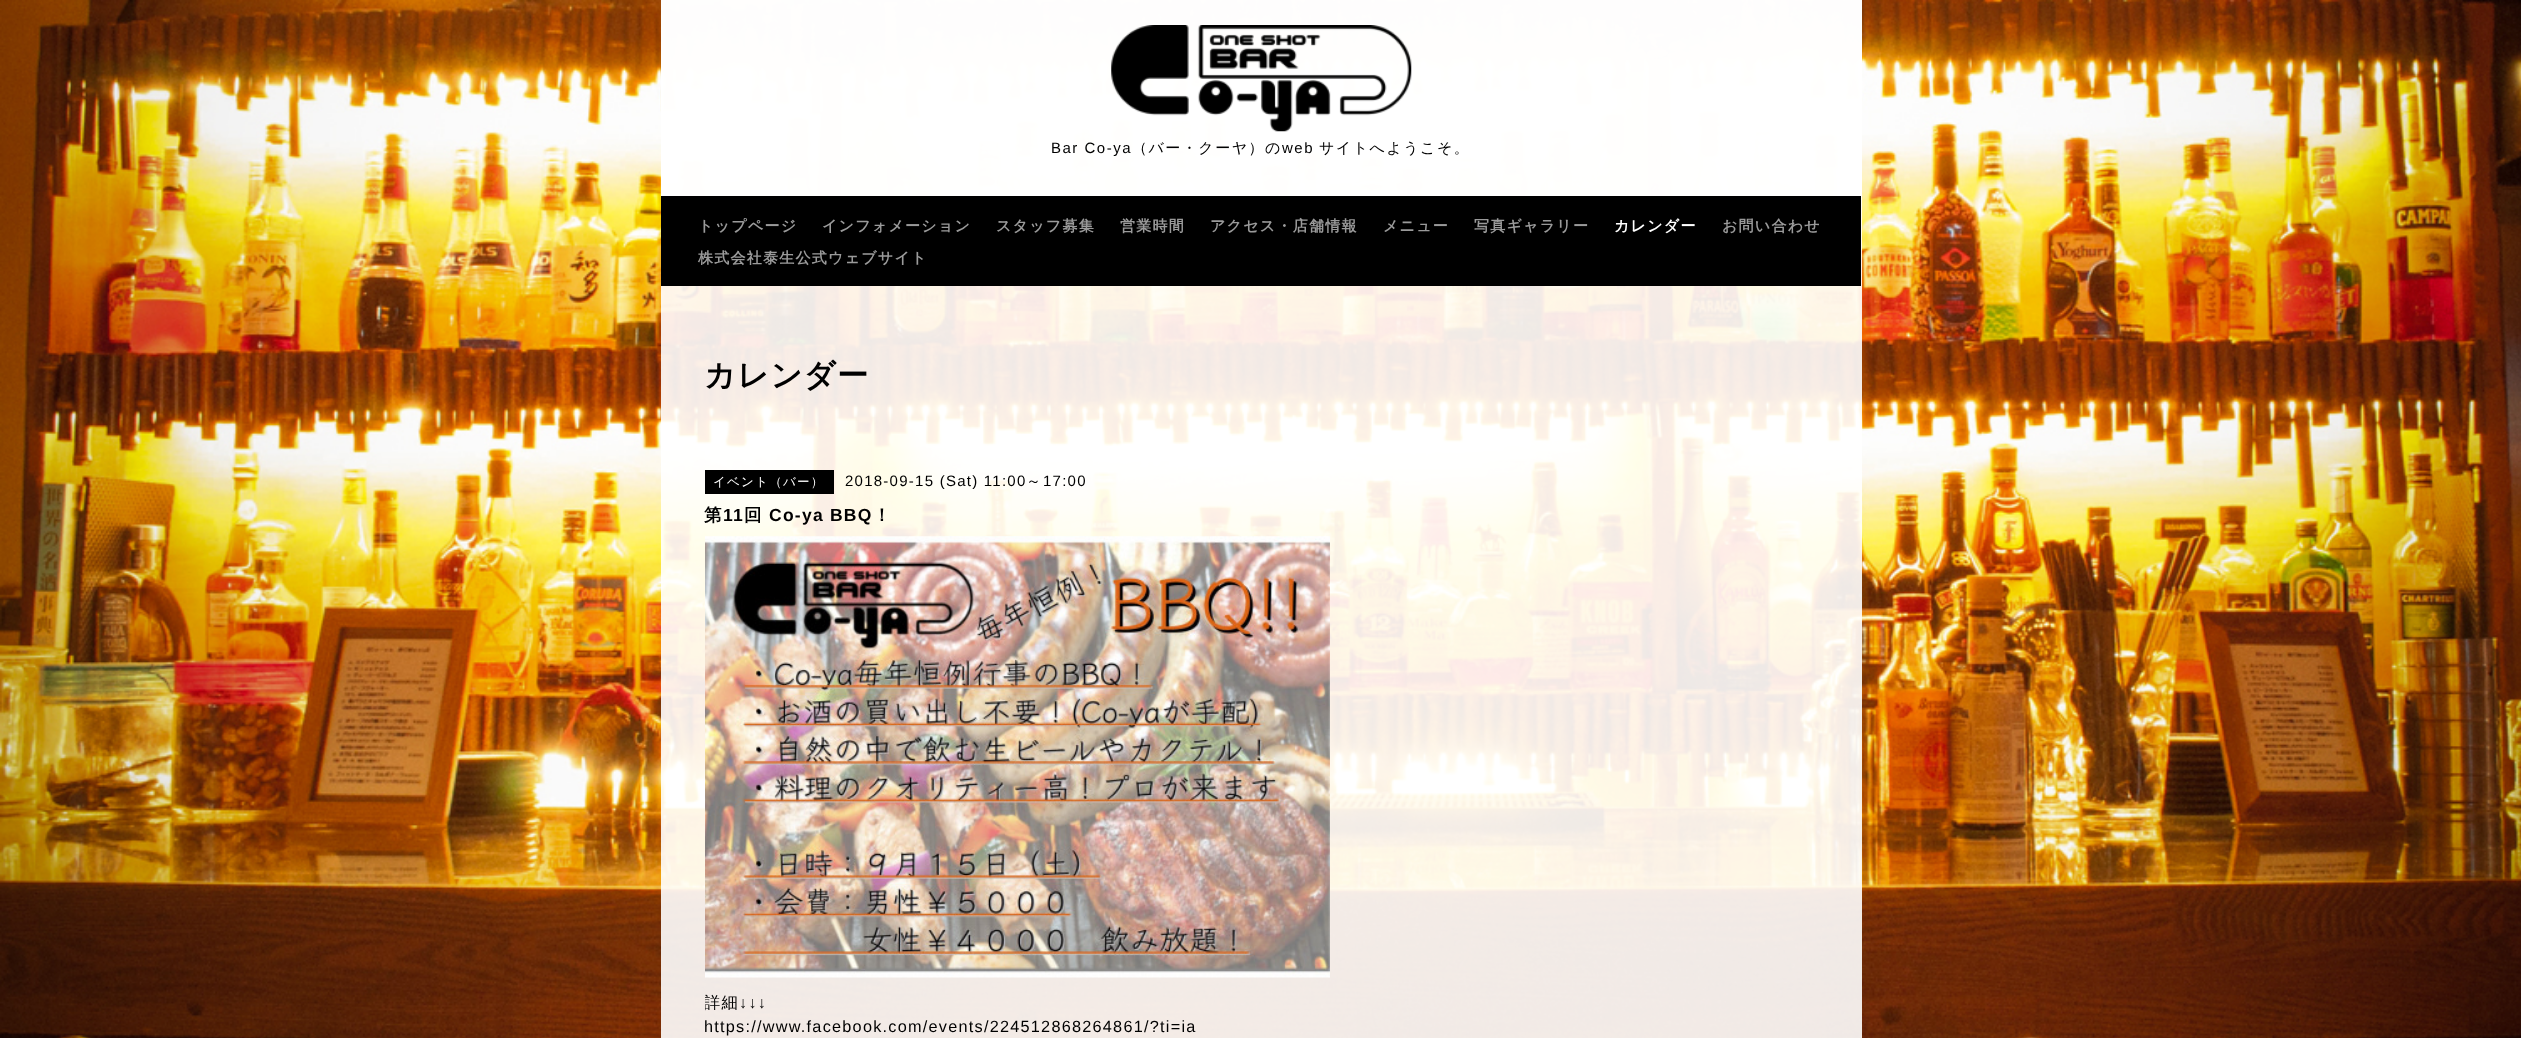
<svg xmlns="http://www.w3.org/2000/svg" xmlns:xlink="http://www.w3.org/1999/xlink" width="2521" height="1038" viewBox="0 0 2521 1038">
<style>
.cls-1{font:15px Liberation Sans;letter-spacing:1.5px;fill:#000000}
.cls-2{font:500 15px WenQuanYi Zen Hei;letter-spacing:1.5px;fill:#000000}
.cls-3{font:bold 15px WenQuanYi Zen Hei;letter-spacing:1.25px;fill:#9a9a9a}
.cls-4{font:bold 15px WenQuanYi Zen Hei;letter-spacing:1.25px;fill:#ffffff}
.cls-5{font:bold 31.25px WenQuanYi Zen Hei;letter-spacing:1.25px;fill:#000000}
.cls-6{font:500 12.5px WenQuanYi Zen Hei;letter-spacing:1.25px;fill:#ffffff}
.cls-7{font:15px Liberation Sans;letter-spacing:1.25px;fill:#000000}
.cls-8{font:500 15px WenQuanYi Zen Hei;letter-spacing:1.25px;fill:#000000}
.cls-9{font:bold 17.5px WenQuanYi Zen Hei;letter-spacing:1.25px;fill:#000000}
.cls-10{font:bold 17.5px Liberation Sans;letter-spacing:1.25px;fill:#000000}
.cls-11{font:500 16.25px WenQuanYi Zen Hei;letter-spacing:1.25px;fill:#000000}
.cls-12{font:16.25px Liberation Sans;letter-spacing:1.25px;fill:#000000}
</style>
<defs>
<clipPath id="clip1"><rect x="705" y="355" width="1113" height="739"/></clipPath>
</defs>
<rect width="100%" height="100%" fill="#ffffff"/>
<image xlink:href="image0.png" x="0" y="0" width="2521" height="1038"/>
<rect fill="#ffffff" fill-opacity="0.9" x="661" y="0" width="1201" height="1038"/>
<rect fill="#ffffff" fill-opacity="0.9" x="661" y="0" width="1201" height="197"/>
<image xlink:href="image1.png" x="1111" y="25" width="301" height="107"/>
<rect fill="#000000" x="661" y="196" width="1200" height="90"/>
<rect fill="#000000" x="705" y="470" width="129" height="24"/>
<image xlink:href="image2.png" x="705" y="536" width="625" height="442"/>
<text class="cls-1" x="1051" y="153">Bar Co-ya</text>
<text class="cls-2" x="1132" y="153">（バー・クーヤ）の</text>
<text class="cls-1" x="1282" y="153">web</text>
<text class="cls-2" x="1319" y="153">サイトへようこそ。</text>
<text class="cls-3" x="698" y="231">トップページ</text>
<text class="cls-3" x="822" y="231">インフォメーション</text>
<text class="cls-3" x="996" y="231">スタッフ募集</text>
<text class="cls-3" x="1120" y="231">営業時間</text>
<text class="cls-3" x="1210" y="231">アクセス・店舗情報</text>
<text class="cls-3" x="1383" y="231">メニュー</text>
<text class="cls-3" x="1474" y="231">写真ギャラリー</text>
<text class="cls-4" x="1614" y="231">カレンダー</text>
<text class="cls-3" x="1722" y="231">お問い合わせ</text>
<text class="cls-3" x="698" y="263">株式会社泰生公式ウェブサイト</text>
<text class="cls-5" x="704" y="386">カレンダー</text>
<text class="cls-6" x="713" y="486">イベント（バー）</text>
<text class="cls-7" x="845" y="486">2018-09-15 (Sat) 11:00</text>
<text class="cls-8" x="1026" y="486">～</text>
<text class="cls-7" x="1043" y="486">17:00</text>
<text class="cls-9" x="704" y="521">第</text>
<text class="cls-10" x="723" y="521">11</text>
<text class="cls-9" x="744" y="521">回</text>
<text class="cls-10" x="769" y="521">Co-ya BBQ</text>
<text class="cls-9" x="873" y="521">！</text>
<g clip-path="url(#clip1)">
<text class="cls-11" x="704" y="1008">詳細</text>
</g>
<text class="cls-12" x="739" y="1008">↓↓↓</text>
<text class="cls-12" x="704" y="1032">https://www.facebook.com/events/224512868264861/?ti=ia</text>
</svg>
